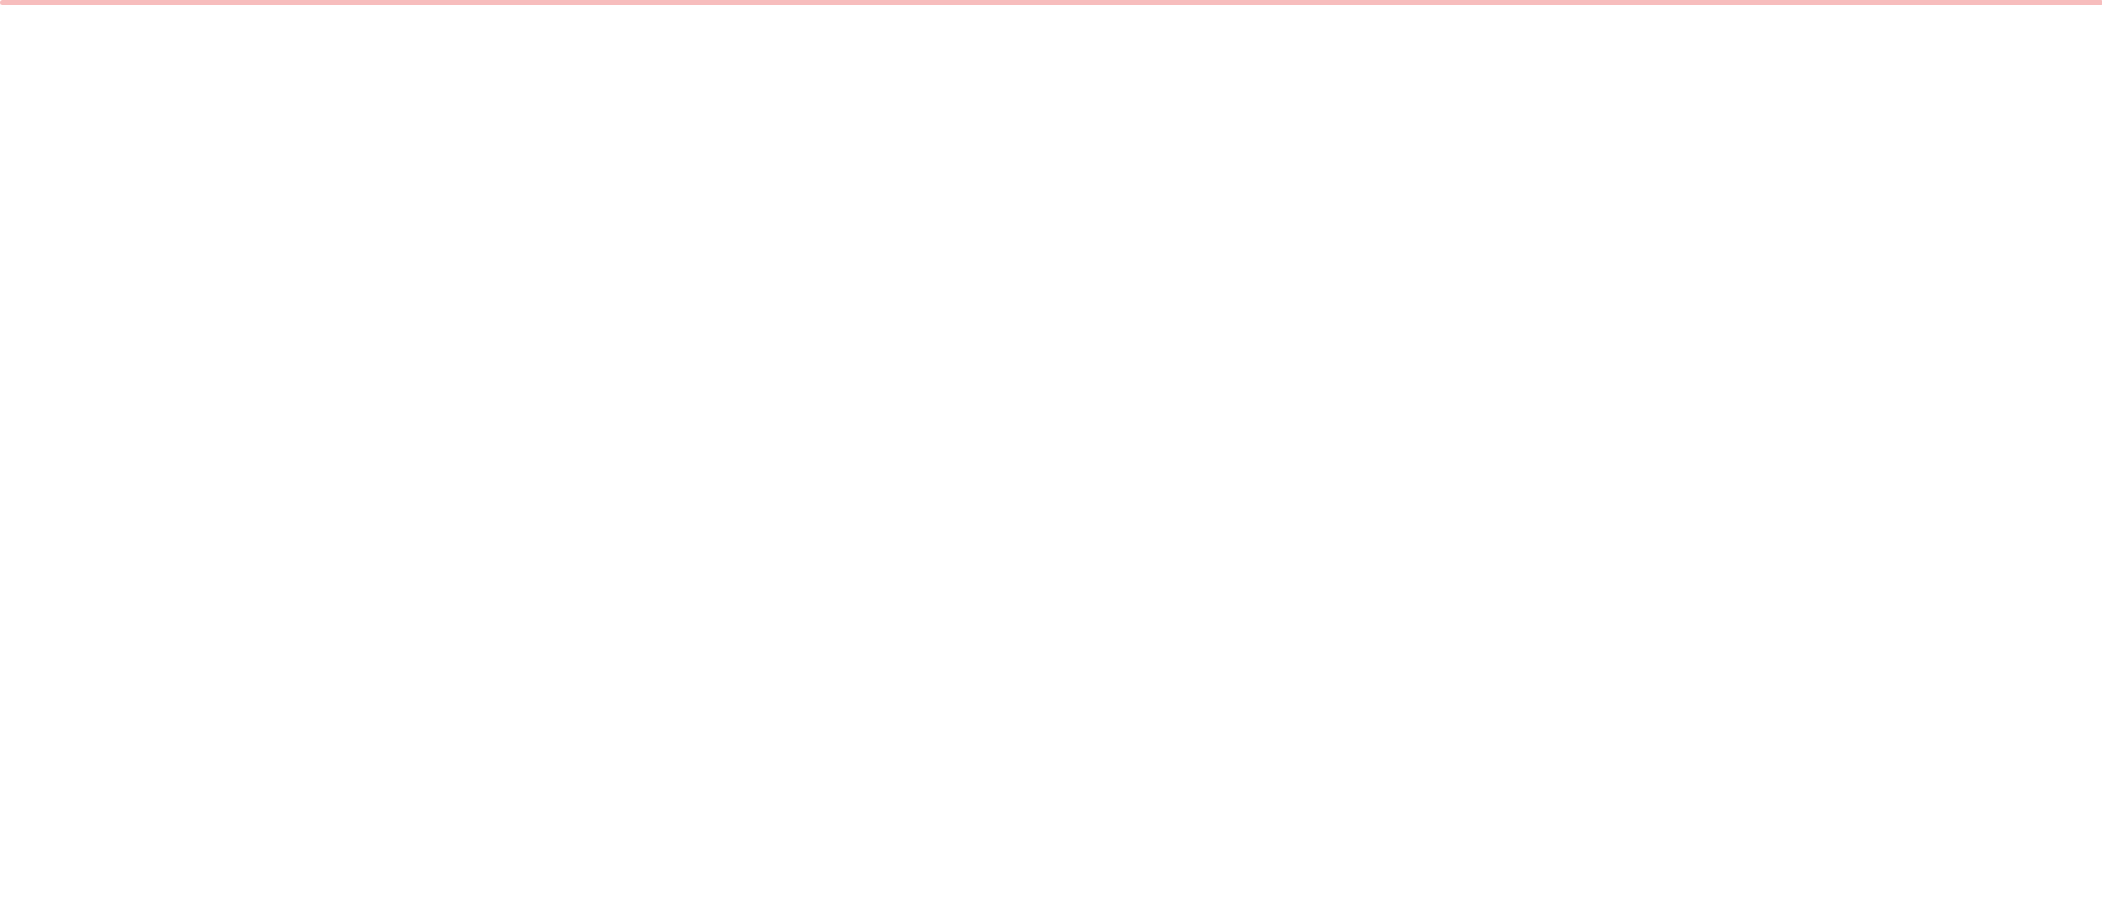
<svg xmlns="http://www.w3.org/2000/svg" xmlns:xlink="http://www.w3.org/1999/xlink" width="2102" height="920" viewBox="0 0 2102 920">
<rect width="100%" height="100%" fill="#ffffff"/>
<rect fill="#f7bdbd" x="0" y="0" width="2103" height="5" rx="2.5"/>
</svg>
